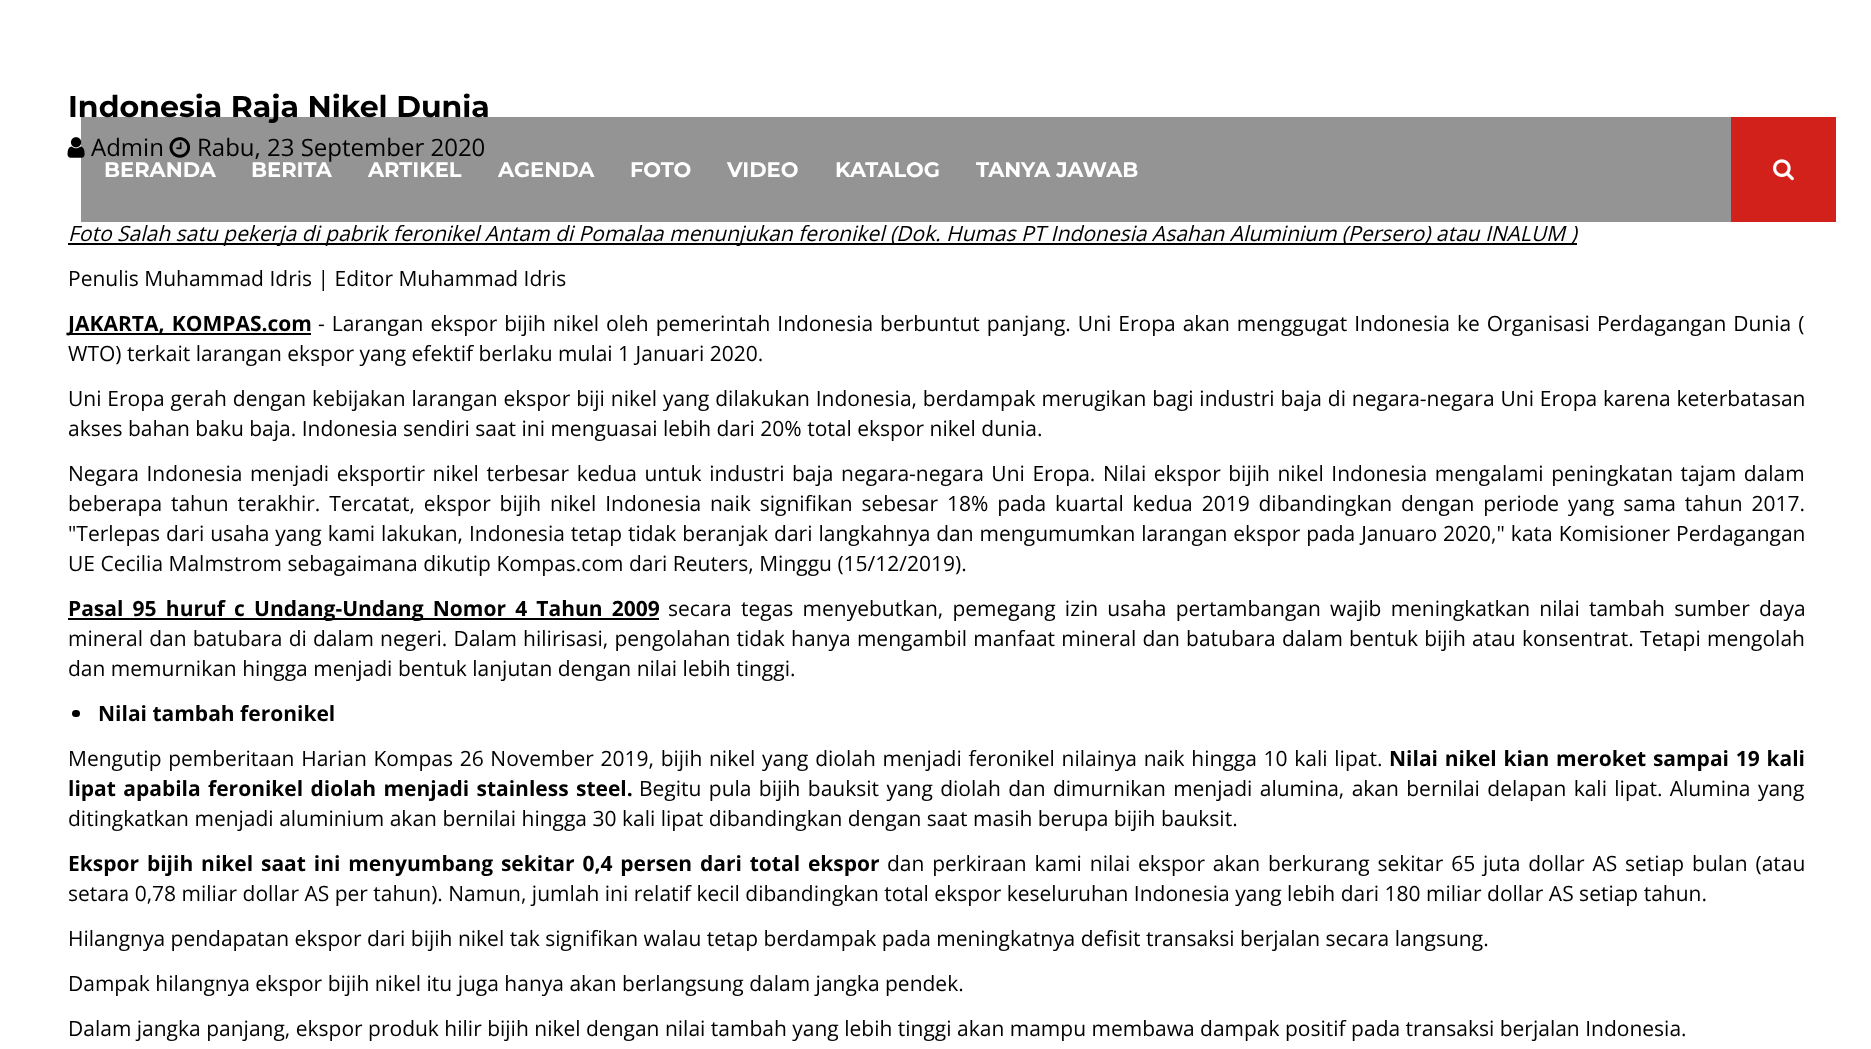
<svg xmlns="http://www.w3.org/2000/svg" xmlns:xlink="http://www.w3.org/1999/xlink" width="1871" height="1049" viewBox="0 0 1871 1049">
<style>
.cls-1{font:bold 30px Montserrat;fill:#000000}
.cls-2{font:24px Open Sans;fill:#000000}
.cls-3{font:italic 21px Open Sans;fill:#000000}
.cls-4{font:21px Open Sans;fill:#000000}
.cls-5{font:bold 21px Open Sans;fill:#000000}
.cls-6{font:bold 21px Montserrat;fill:#ffffff}
</style>
<rect width="100%" height="100%" fill="#ffffff"/>
<image xlink:href="image0.png" x="67" y="137" width="18" height="21"/>
<image xlink:href="image1.png" x="169" y="137" width="22" height="21"/>
<rect fill="#000000" x="68" y="243" width="1509" height="2"/>
<rect fill="#000000" x="68" y="333" width="243" height="2"/>
<rect fill="#000000" x="68" y="618" width="591" height="2"/>
<rect fill="#000000" x="72" y="710" width="8" height="7" rx="3.5"/>
<rect fill="#d2211b" x="1731" y="117" width="105" height="105"/>
<image xlink:href="image2.png" x="1773" y="159" width="21" height="22"/>
<text class="cls-1" x="68" y="117">Indonesia Raja Nikel Dunia</text>
<text class="cls-2" x="91" y="156">Admin</text>
<text class="cls-2" x="197" y="156">Rabu, 23 September 2020</text>
<text class="cls-3" x="68" y="241">Foto Salah satu pekerja di pabrik feronikel Antam di Pomalaa menunjukan feronikel (Dok. Humas PT Indonesia Asahan Aluminium (Persero) atau INALUM )</text>
<text class="cls-4" x="68" y="286">Penulis Muhammad Idris | Editor Muhammad Idris</text>
<text class="cls-5" x="68" y="331" word-spacing="2">JAKARTA, KOMPAS.com</text>
<text class="cls-4" x="318" y="331" word-spacing="1.5">- Larangan ekspor bijih nikel oleh pemerintah Indonesia berbuntut panjang. Uni Eropa akan menggugat Indonesia ke Organisasi Perdagangan Dunia (</text>
<text class="cls-4" x="68" y="361">WTO) terkait larangan ekspor yang efektif berlaku mulai 1 Januari 2020.</text>
<text class="cls-4"><tspan x="68" y="406" word-spacing="0.4">Uni Eropa gerah dengan kebijakan larangan ekspor biji nikel yang dilakukan Indonesia, berdampak merugikan bagi industri baja di negara-negara Uni Eropa karena keterbatasan</tspan><tspan x="68" y="436">akses bahan baku baja. Indonesia sendiri saat ini menguasai lebih dari 20% total ekspor nikel dunia.</tspan></text>
<text class="cls-4"><tspan x="68" y="481" word-spacing="2.1">Negara Indonesia menjadi eksportir nikel terbesar kedua untuk industri baja negara-negara Uni Eropa. Nilai ekspor bijih nikel Indonesia mengalami peningkatan tajam dalam</tspan><tspan x="68" y="511" word-spacing="3.4">beberapa tahun terakhir. Tercatat, ekspor bijih nikel Indonesia naik signifikan sebesar 18% pada kuartal kedua 2019 dibandingkan dengan periode yang sama tahun 2017.</tspan><tspan x="68" y="541" word-spacing="0.5">"Terlepas dari usaha yang kami lakukan, Indonesia tetap tidak beranjak dari langkahnya dan mengumumkan larangan ekspor pada Januaro 2020," kata Komisioner Perdagangan</tspan><tspan x="68" y="571">UE Cecilia Malmstrom sebagaimana dikutip Kompas.com dari Reuters, Minggu (15/12/2019).</tspan></text>
<text class="cls-5" x="68" y="616" word-spacing="3.75">Pasal 95 huruf c Undang-Undang Nomor 4 Tahun 2009</text>
<text class="cls-4" x="668" y="616" word-spacing="3.75">secara tegas menyebutkan, pemegang izin usaha pertambangan wajib meningkatkan nilai tambah sumber daya</text>
<text class="cls-4"><tspan x="68" y="646" word-spacing="0.75">mineral dan batubara di dalam negeri. Dalam hilirisasi, pengolahan tidak hanya mengambil manfaat mineral dan batubara dalam bentuk bijih atau konsentrat. Tetapi mengolah</tspan><tspan x="68" y="676">dan memurnikan hingga menjadi bentuk lanjutan dengan nilai lebih tinggi.</tspan></text>
<text class="cls-5" x="98" y="721">Nilai tambah feronikel</text>
<text class="cls-4" x="68" y="766" word-spacing="1.25">Mengutip pemberitaan Harian Kompas 26 November 2019, bijih nikel yang diolah menjadi feronikel nilainya naik hingga 10 kali lipat.</text>
<text class="cls-5" x="1389" y="766" word-spacing="1.25">Nilai nikel kian meroket sampai 19 kali</text>
<text class="cls-5" x="68" y="796" word-spacing="1.9">lipat apabila feronikel diolah menjadi stainless steel.</text>
<text class="cls-4" x="639" y="796" word-spacing="1.9">Begitu pula bijih bauksit yang diolah dan dimurnikan menjadi alumina, akan bernilai delapan kali lipat. Alumina yang</text>
<text class="cls-4" x="68" y="826">ditingkatkan menjadi aluminium akan bernilai hingga 30 kali lipat dibandingkan dengan saat masih berupa bijih bauksit.</text>
<text class="cls-5" x="68" y="871" word-spacing="2.4">Ekspor bijih nikel saat ini menyumbang sekitar 0,4 persen dari total ekspor</text>
<text class="cls-4" x="887" y="871" word-spacing="2.4">dan perkiraan kami nilai ekspor akan berkurang sekitar 65 juta dollar AS setiap bulan (atau</text>
<text class="cls-4" x="68" y="901">setara 0,78 miliar dollar AS per tahun). Namun, jumlah ini relatif kecil dibandingkan total ekspor keseluruhan Indonesia yang lebih dari 180 miliar dollar AS setiap tahun.</text>
<text class="cls-4" x="68" y="946">Hilangnya pendapatan ekspor dari bijih nikel tak signifikan walau tetap berdampak pada meningkatnya defisit transaksi berjalan secara langsung.</text>
<text class="cls-4" x="68" y="991">Dampak hilangnya ekspor bijih nikel itu juga hanya akan berlangsung dalam jangka pendek.</text>
<text class="cls-4" x="68" y="1036">Dalam jangka panjang, ekspor produk hilir bijih nikel dengan nilai tambah yang lebih tinggi akan mampu membawa dampak positif pada transaksi berjalan Indonesia.</text>
<rect fill="#000000" fill-opacity="0.42" x="81" y="117" width="1650" height="105"/>
<text class="cls-6" x="104" y="177">BERANDA</text>
<text class="cls-6" x="251" y="177">BERITA</text>
<text class="cls-6" x="368" y="177">ARTIKEL</text>
<text class="cls-6" x="498" y="177">AGENDA</text>
<text class="cls-6" x="630" y="177">FOTO</text>
<text class="cls-6" x="727" y="177">VIDEO</text>
<text class="cls-6" x="835" y="177">KATALOG</text>
<text class="cls-6" x="976" y="177">TANYA JAWAB</text>
</svg>
